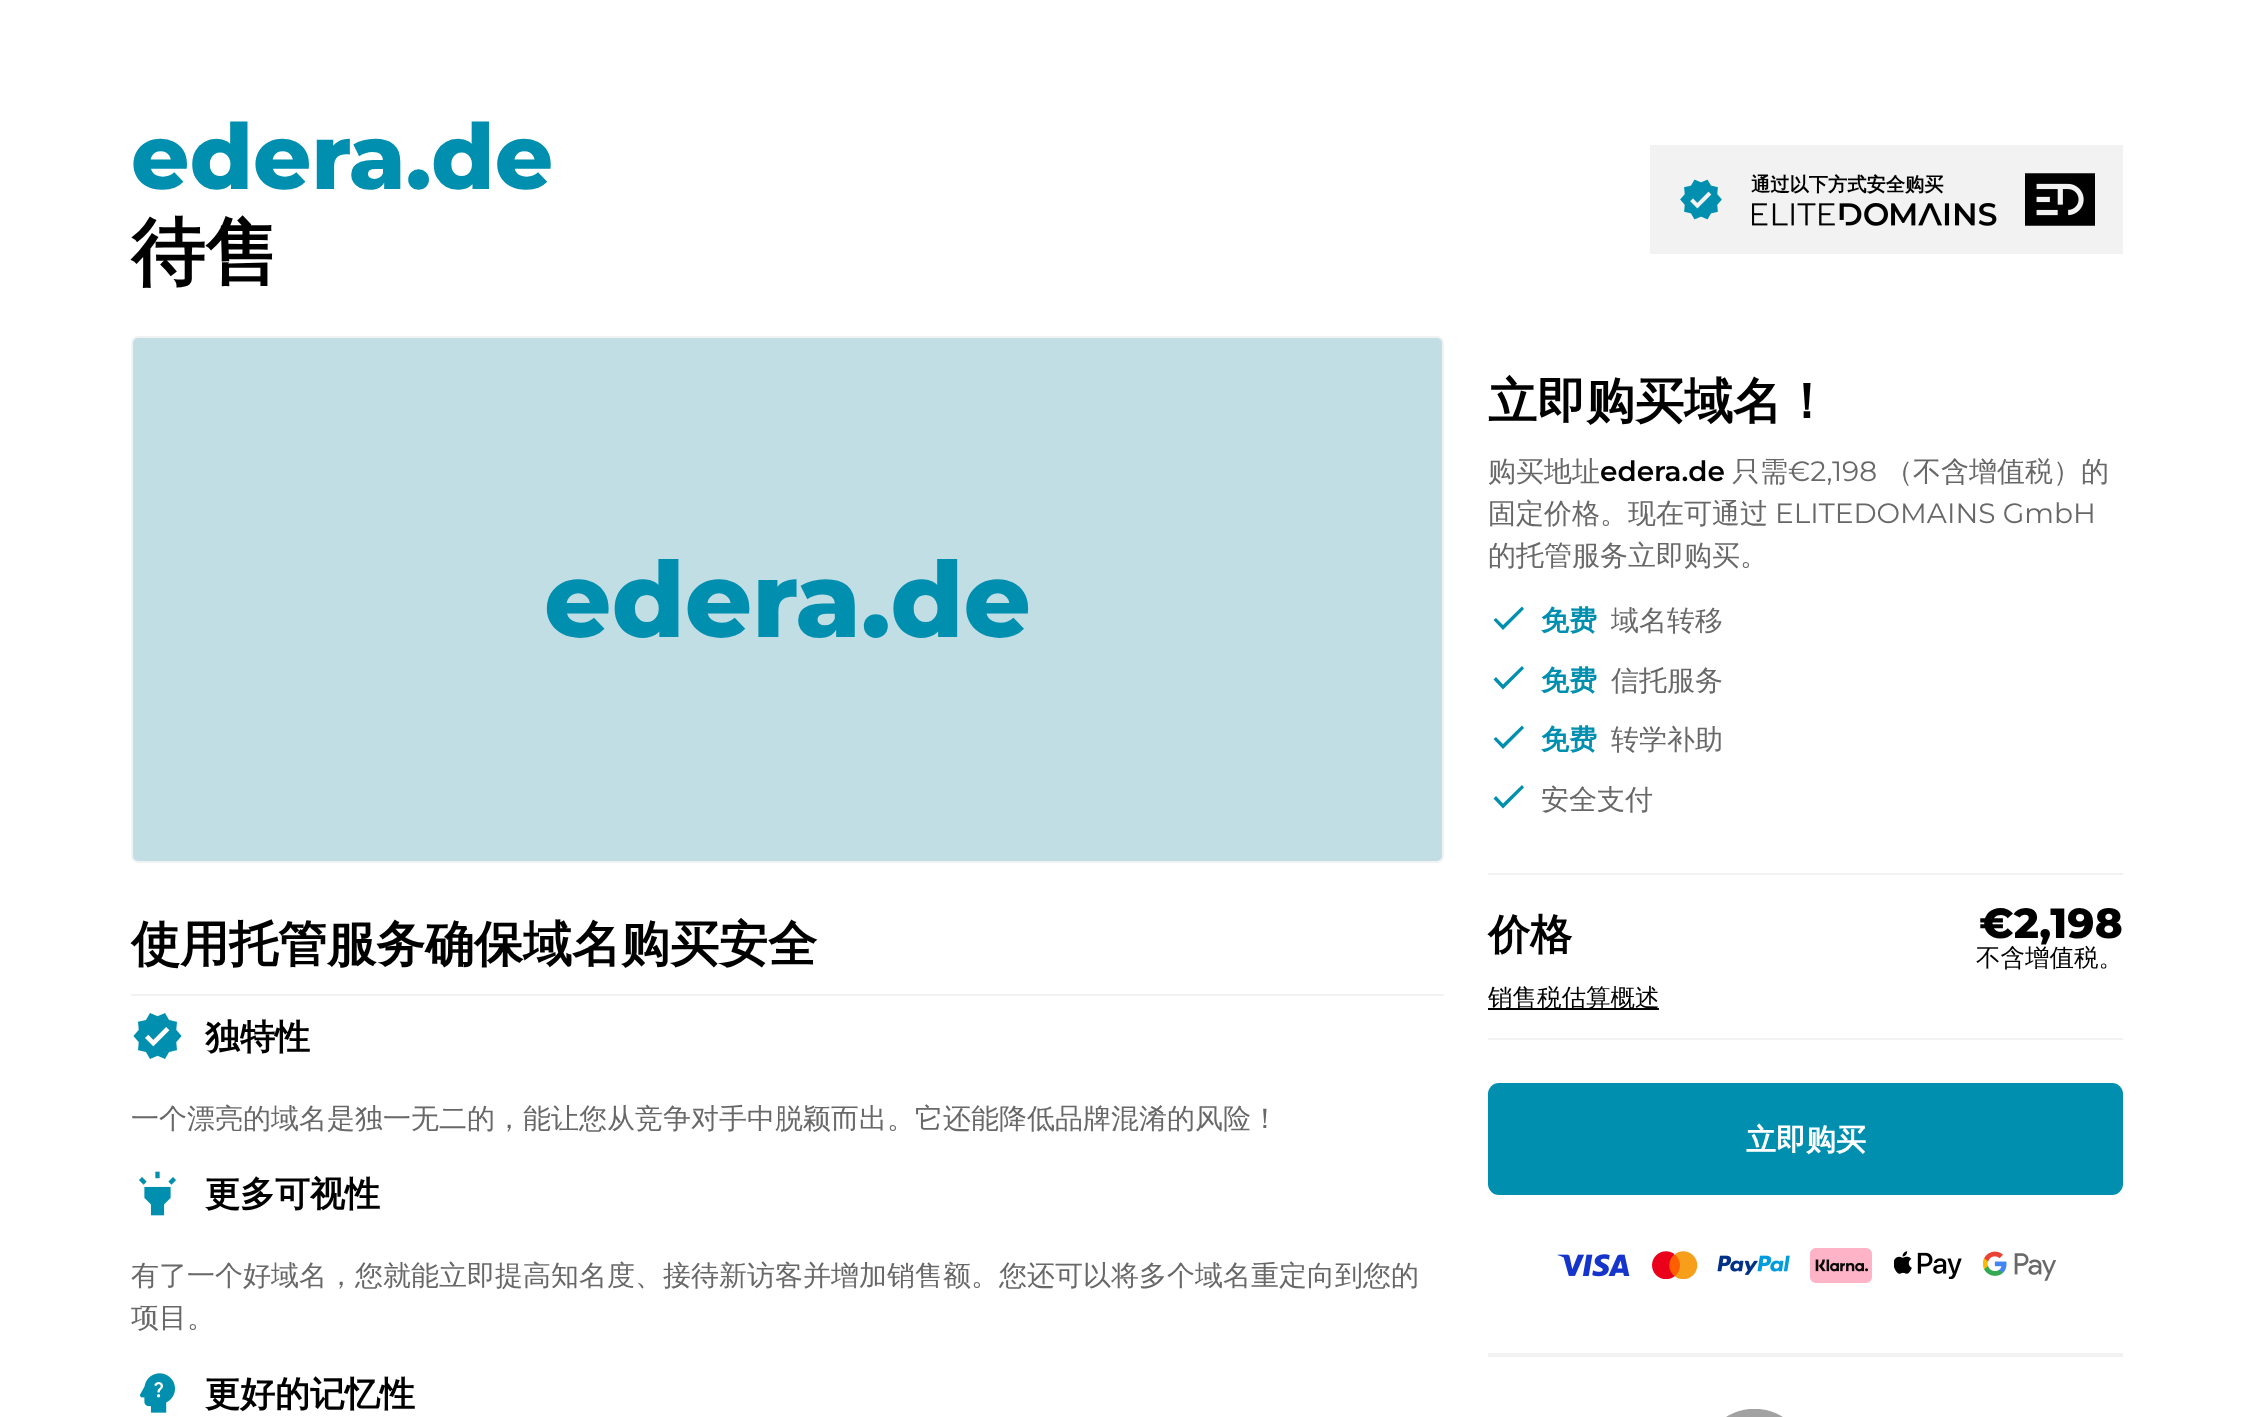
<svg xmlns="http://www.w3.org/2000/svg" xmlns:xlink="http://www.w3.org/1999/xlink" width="2254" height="1417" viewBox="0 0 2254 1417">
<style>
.cls-1{font:800 91px Montserrat;fill:#008faf}
.cls-2{font:bold 74px WenQuanYi Zen Hei;fill:#000000}
.cls-3{font:bold 19.25px WenQuanYi Zen Hei;fill:#000000}
.cls-4{font:800 105px Montserrat;fill:#008faf}
.cls-5{font:bold 49px WenQuanYi Zen Hei;fill:#000000}
.cls-6{font:500 28px WenQuanYi Zen Hei;fill:#686868}
.cls-7{font:600 28px Montserrat;fill:#000000}
.cls-8{font:28px Montserrat;fill:#686868}
.cls-9{font:bold 28px WenQuanYi Zen Hei;fill:#008faf}
.cls-10{font:bold 42px WenQuanYi Zen Hei;fill:#000000}
.cls-11{font:800 42px Montserrat;fill:#000000}
.cls-12{font:500 24.5px WenQuanYi Zen Hei;fill:#000000}
.cls-13{font:bold 30px WenQuanYi Zen Hei;fill:#ffffff}
.cls-14{font:bold 35px WenQuanYi Zen Hei;fill:#000000}
</style>
<rect width="100%" height="100%" fill="#ffffff"/>
<rect fill="#f2f2f2" x="1650" y="145" width="473" height="109"/>
<image xlink:href="image0.png" x="1680" y="179" width="42" height="41"/>
<image xlink:href="image1.png" x="1752" y="203" width="245" height="23"/>
<image xlink:href="image2.png" x="2025" y="173" width="70" height="53"/>
<rect fill="#c2dee5" stroke="#f2f2f2" stroke-width="2" x="132" y="337" width="1311" height="525" rx="6"/>
<path fill="#008faf" d="M1503 625L1522 606.5L1524 609L1503 630L1493.5 620L1496 618Z"/>
<path fill="#008faf" d="M1503 684.5L1522 666L1524 668.5L1503 689.5L1493.5 679.5L1496 677Z"/>
<path fill="#008faf" d="M1503 744L1522 725.5L1524 728L1503 749L1493.5 739L1496 737Z"/>
<path fill="#008faf" d="M1503 803.5L1522 785L1524 787.5L1503 808.5L1493.5 798.5L1496 796Z"/>
<rect fill="#f2f2f2" x="1488" y="873" width="635" height="2"/>
<rect fill="#f2f2f2" x="1488" y="1038" width="635" height="2"/>
<rect fill="#000000" x="1488" y="1008" width="171" height="2"/>
<rect fill="#008faf" x="1488" y="1083" width="635" height="112" rx="11"/>
<image xlink:href="image3.png" x="1557" y="1254" width="73" height="23"/>
<image xlink:href="image4.png" x="1652" y="1251" width="46" height="28"/>
<image xlink:href="image5.png" x="1717" y="1255" width="73" height="20"/>
<image xlink:href="image6.png" x="1810" y="1248" width="62" height="35"/>
<image xlink:href="image7.png" x="1894" y="1251" width="68" height="28"/>
<image xlink:href="image8.png" x="1983" y="1251" width="73" height="30"/>
<rect fill="#f2f2f2" x="1488" y="1353" width="635" height="4"/>
<image xlink:href="image9.png" x="1726" y="1409" width="57" height="8"/>
<rect fill="#f2f2f2" x="131" y="994" width="1313" height="2"/>
<image xlink:href="image10.png" x="133" y="1013" width="49" height="46"/>
<image xlink:href="image11.png" x="139" y="1171" width="37" height="45"/>
<image xlink:href="image12.png" x="140" y="1373" width="35" height="40"/>
<text class="cls-1" x="131" y="189">edera.de</text>
<text class="cls-2" x="131" y="278">待售</text>
<text class="cls-3" x="1751" y="191">通过以下方式安全购买</text>
<text class="cls-4" x="544" y="637">edera.de</text>
<text class="cls-5" x="1488" y="418">立即购买域名！</text>
<text class="cls-6" x="1488" y="481">购买地址</text>
<text class="cls-7" x="1600" y="481">edera.de</text>
<text class="cls-6" x="1732" y="481">只需</text>
<text class="cls-8" x="1788" y="481">€2,198</text>
<text class="cls-6" x="1885" y="481">（不含增值税）的</text>
<text class="cls-6" x="1488" y="523">固定价格。现在可通过</text>
<text class="cls-8" x="1775" y="523">ELITEDOMAINS GmbH</text>
<text class="cls-6" x="1488" y="565">的托管服务立即购买。</text>
<text class="cls-9" x="1541" y="630">免费</text>
<text class="cls-6" x="1611" y="630">域名转移</text>
<text class="cls-9" x="1541" y="690">免费</text>
<text class="cls-6" x="1611" y="690">信托服务</text>
<text class="cls-9" x="1541" y="749">免费</text>
<text class="cls-6" x="1611" y="749">转学补助</text>
<text class="cls-6" x="1541" y="809">安全支付</text>
<text class="cls-10" x="1488" y="949">价格</text>
<text class="cls-11" x="1979" y="938">€2,198</text>
<text class="cls-12" x="1976" y="966">不含增值税。</text>
<text class="cls-12" x="1488" y="1006">销售税估算概述</text>
<text class="cls-13" x="1746" y="1150">立即购买</text>
<text class="cls-5" x="131" y="961">使用托管服务确保域名购买安全</text>
<text class="cls-14" x="205" y="1049">独特性</text>
<text class="cls-6" x="131" y="1128">一个漂亮的域名是独一无二的，能让您从竞争对手中脱颖而出。它还能降低品牌混淆的风险！</text>
<text class="cls-14" x="205" y="1206">更多可视性</text>
<text class="cls-6"><tspan x="131" y="1285">有了一个好域名，您就能立即提高知名度、接待新访客并增加销售额。您还可以将多个域名重定向到您的</tspan><tspan x="131" y="1327">项目。</tspan></text>
<text class="cls-14" x="205" y="1406">更好的记忆性</text>
</svg>
